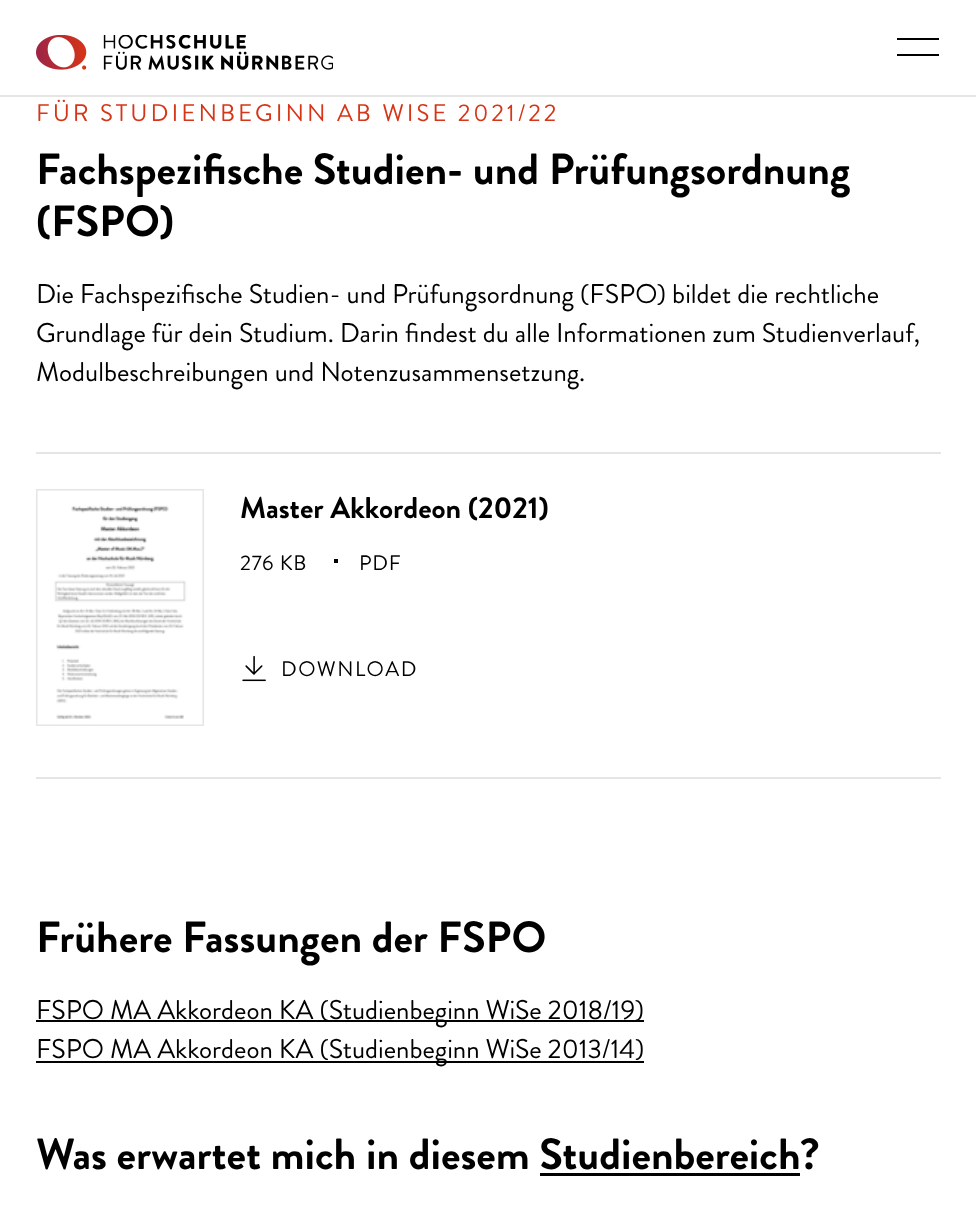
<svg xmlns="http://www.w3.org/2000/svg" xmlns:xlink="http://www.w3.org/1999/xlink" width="976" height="1218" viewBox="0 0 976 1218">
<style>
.cls-1{font:24px Brandon Grotesque;letter-spacing:3px;fill:#d63517}
.cls-2{font:bold 43.6px Brandon Grotesque;fill:#000000}
.cls-3{font:27px Brandon Grotesque;fill:#000000}
.cls-4{font:bold 30px Brandon Grotesque;fill:#000000}
.cls-5{font:21px Brandon Grotesque;letter-spacing:0.75px;fill:#000000}
.cls-6{font:21px Brandon Grotesque;letter-spacing:1.5px;fill:#000000}
</style>
<rect width="100%" height="100%" fill="#ffffff"/>
<rect fill="#e5e5e5" x="0" y="95" width="976" height="2"/>
<image xlink:href="image0.png" x="36" y="35" width="297" height="35"/>
<rect fill="#000000" x="897" y="38" width="42" height="2"/>
<rect fill="#000000" x="897" y="54" width="42" height="2"/>
<rect fill="#e5e5e5" x="36" y="452" width="905" height="2"/>
<rect fill="#e5e5e5" x="36" y="777" width="905" height="2"/>
<rect fill="none" stroke="#e5e5e5" stroke-width="2" x="37" y="490" width="166" height="235"/>
<image xlink:href="image1.png" x="37" y="490" width="166" height="235"/>
<rect fill="#000000" x="334" y="559" width="4" height="4"/>
<image xlink:href="image2.png" x="242" y="655" width="24" height="27"/>
<rect fill="#000000" x="36" y="1020" width="608" height="2"/>
<rect fill="#000000" x="36" y="1061" width="608" height="2"/>
<rect fill="#000000" x="540" y="1173" width="260" height="3"/>
<text class="cls-1" x="36" y="121">FÜR STUDIENBEGINN AB WISE 2021/22</text>
<text class="cls-2"><tspan x="36" y="184">Fachspezifische Studien- und Prüfungsordnung</tspan><tspan x="36" y="236">(FSPO)</tspan></text>
<text class="cls-3"><tspan x="36" y="303">Die Fachspezifische Studien- und Prüfungsordnung (FSPO) bildet die rechtliche</tspan><tspan x="36" y="342">Grundlage für dein Studium. Darin findest du alle Informationen zum Studienverlauf,</tspan><tspan x="36" y="381">Modulbeschreibungen und Notenzusammensetzung.</tspan></text>
<text class="cls-4" x="240" y="518">Master Akkordeon (2021)</text>
<text class="cls-5" x="240" y="570">276 KB</text>
<text class="cls-5" x="359" y="570">PDF</text>
<text class="cls-6" x="281" y="676">DOWNLOAD</text>
<text class="cls-2" x="36" y="952">Frühere Fassungen der FSPO</text>
<text class="cls-3"><tspan x="36" y="1019">FSPO MA Akkordeon KA (Studienbeginn WiSe 2018/19)</tspan><tspan x="36" y="1058">FSPO MA Akkordeon KA (Studienbeginn WiSe 2013/14)</tspan></text>
<text class="cls-2" x="36" y="1169">Was erwartet mich in diesem Studienbereich</text>
<text class="cls-2" x="800" y="1169">?</text>
</svg>
